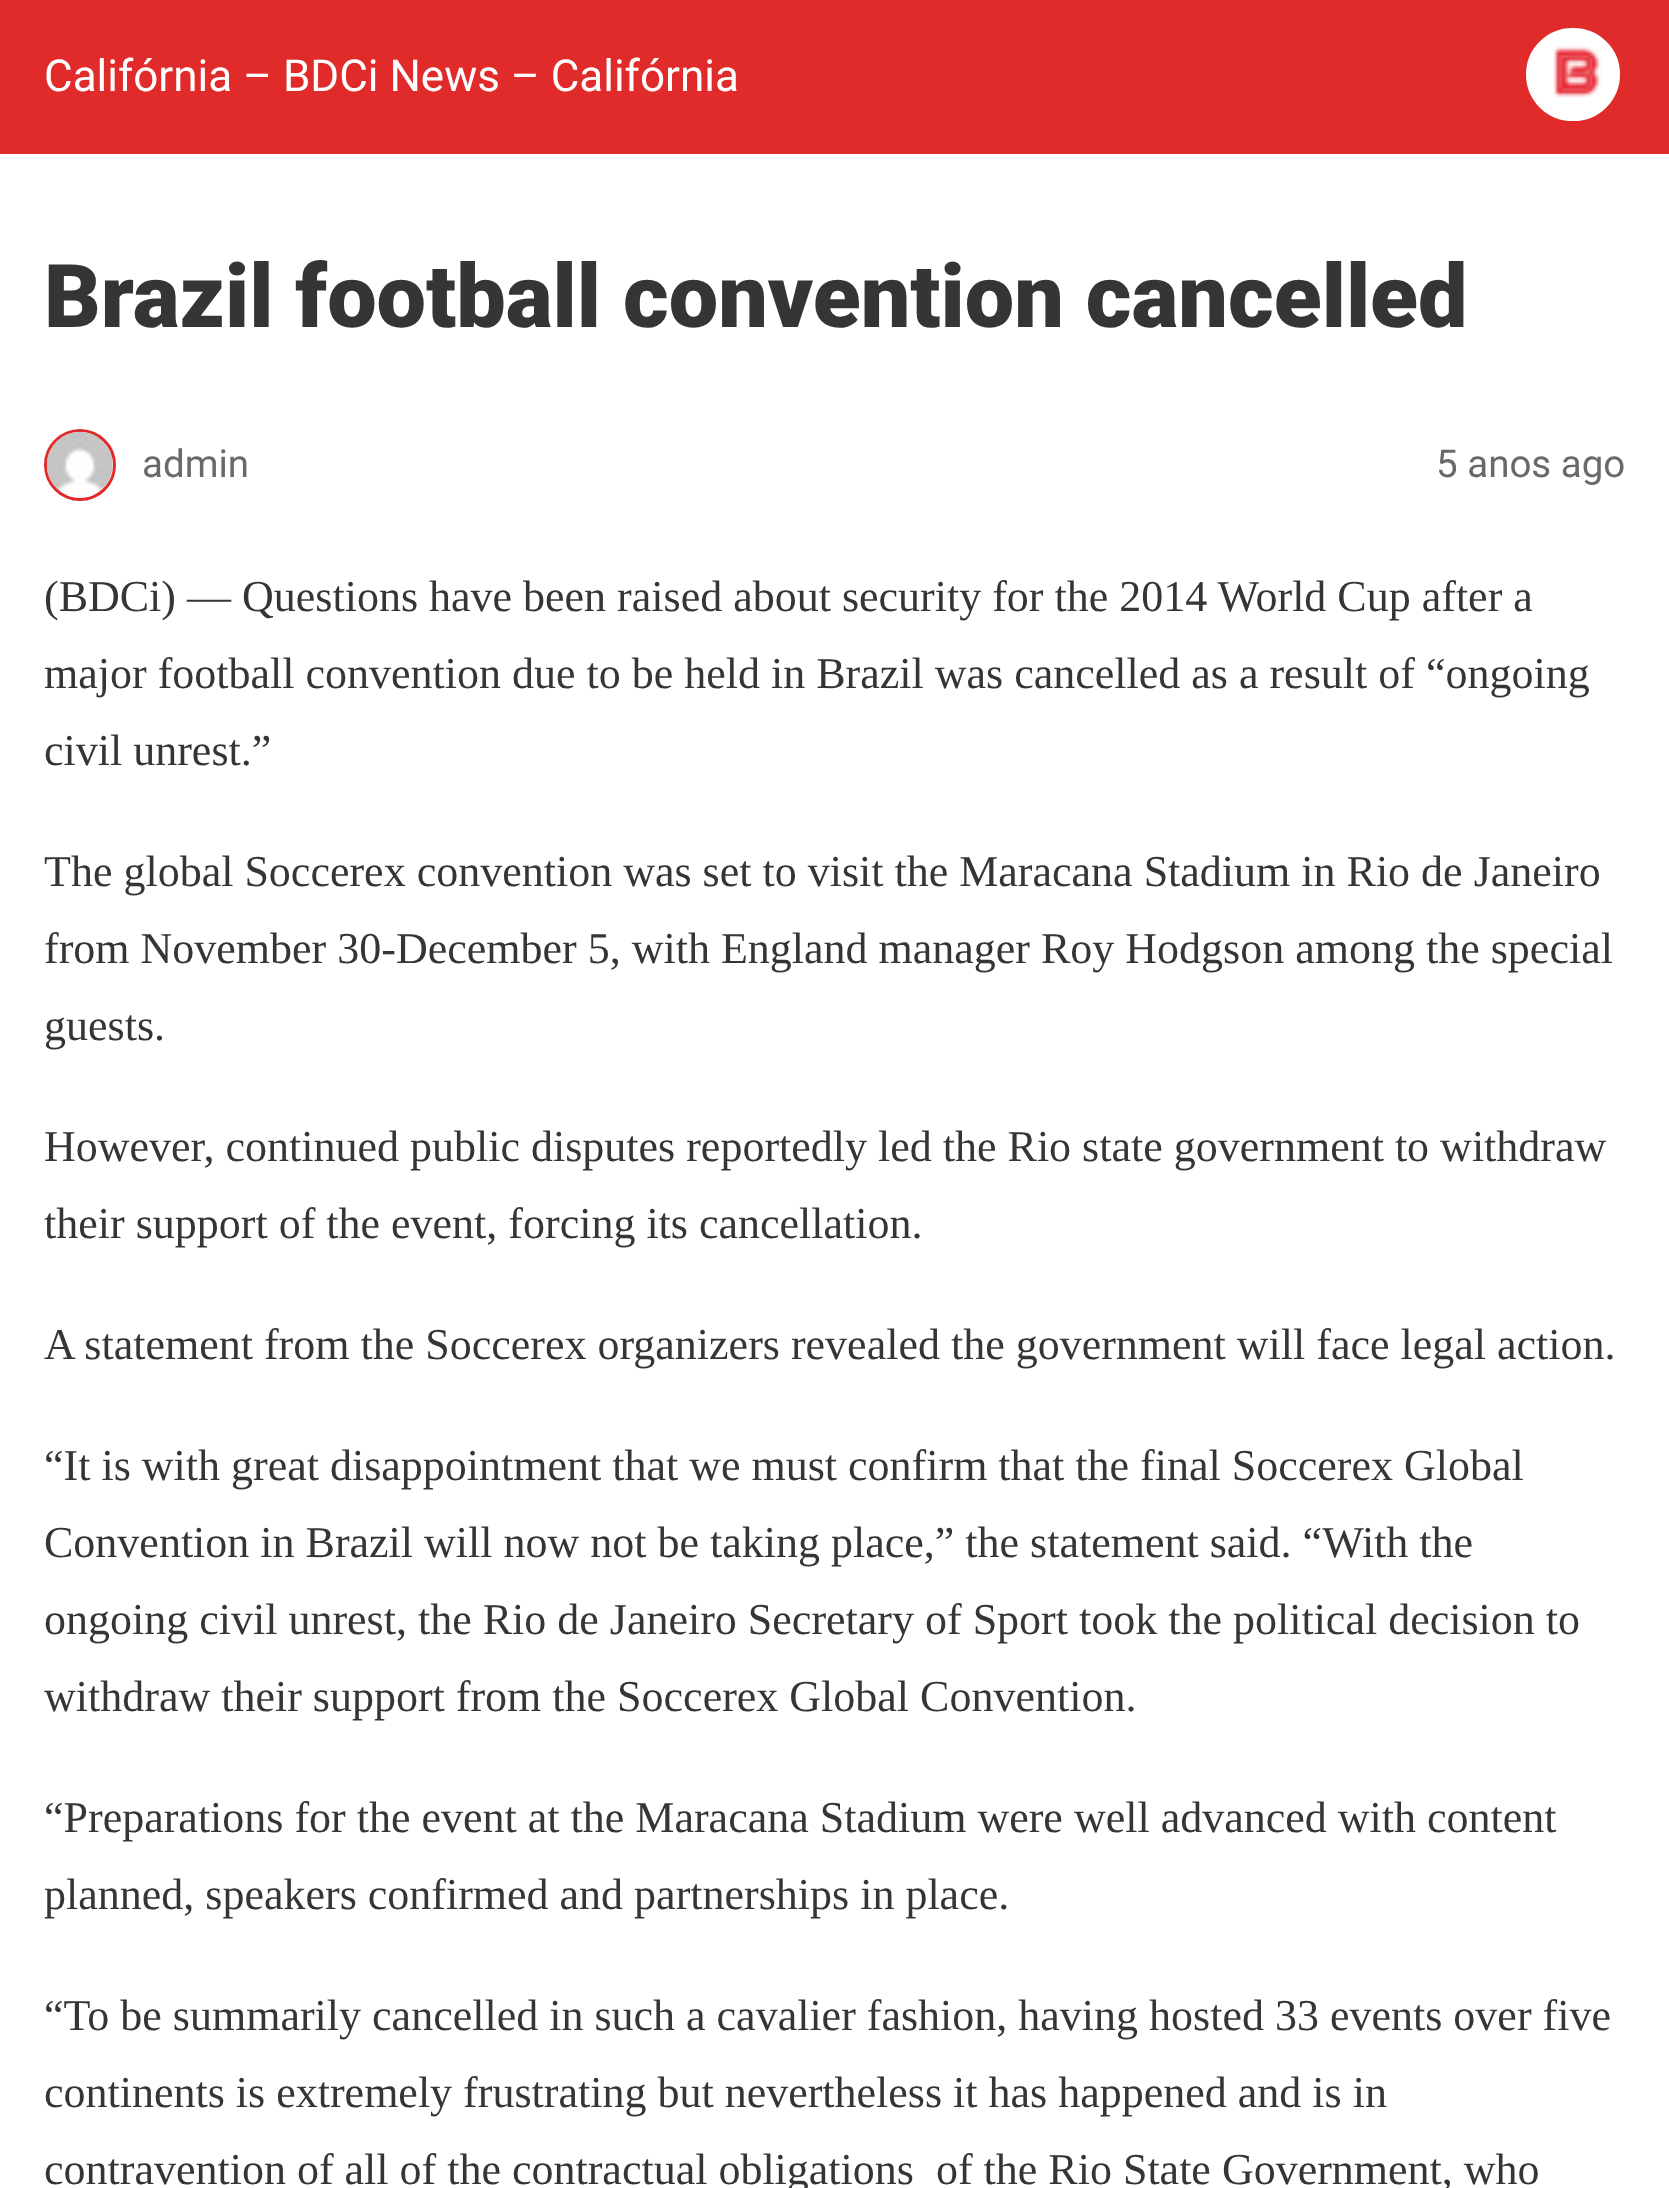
<svg xmlns="http://www.w3.org/2000/svg" xmlns:xlink="http://www.w3.org/1999/xlink" width="1669" height="2188" viewBox="0 0 1669 2188">
<style>
.cls-1{font:44px Roboto;fill:#ffffff}
.cls-2{font:900 88px Roboto;fill:#353535}
.cls-3{font:38.5px Roboto;fill:#696969}
.cls-4{font:44px Liberation Serif;fill:#353535}
</style>
<rect width="100%" height="100%" fill="#ffffff"/>
<rect fill="#e12b2b" x="0" y="0" width="1669" height="154"/>
<rect fill="#ffffff" stroke="#ffffff" stroke-width="3" x="1527.5" y="29.5" width="91" height="90" rx="45"/>
<image xlink:href="image0.png" x="1553" y="46" width="49" height="52"/>
<circle fill="none" stroke="#e12b2b" stroke-width="3" cx="80" cy="465" r="34.5"/>
<image xlink:href="image1.png" x="46" y="431" width="67" height="67"/>
<text class="cls-1" x="44" y="91">Califórnia – BDCi News – Califórnia</text>
<text class="cls-2" x="44" y="327">Brazil football convention cancelled</text>
<text class="cls-3" x="142" y="477">admin</text>
<text class="cls-3" x="1436" y="477">5 anos ago</text>
<text class="cls-4"><tspan x="44" y="611">(BDCi) — Questions have been raised about security for the 2014 World Cup after a</tspan><tspan x="44" y="688">major football convention due to be held in Brazil was cancelled as a result of “ongoing</tspan><tspan x="44" y="765">civil unrest.”</tspan></text>
<text class="cls-4"><tspan x="44" y="886">The global Soccerex convention was set to visit the Maracana Stadium in Rio de Janeiro</tspan><tspan x="44" y="963">from November 30-December 5, with England manager Roy Hodgson among the special</tspan><tspan x="44" y="1040">guests.</tspan></text>
<text class="cls-4"><tspan x="44" y="1161">However, continued public disputes reportedly led the Rio state government to withdraw</tspan><tspan x="44" y="1238">their support of the event, forcing its cancellation.</tspan></text>
<text class="cls-4" x="44" y="1359">A statement from the Soccerex organizers revealed the government will face legal action.</text>
<text class="cls-4"><tspan x="44" y="1480">“It is with great disappointment that we must confirm that the final Soccerex Global</tspan><tspan x="44" y="1557">Convention in Brazil will now not be taking place,” the statement said. “With the</tspan><tspan x="44" y="1634">ongoing civil unrest, the Rio de Janeiro Secretary of Sport took the political decision to</tspan><tspan x="44" y="1711">withdraw their support from the Soccerex Global Convention.</tspan></text>
<text class="cls-4"><tspan x="44" y="1832">“Preparations for the event at the Maracana Stadium were well advanced with content</tspan><tspan x="44" y="1909">planned, speakers confirmed and partnerships in place.</tspan></text>
<text class="cls-4" xml:space="preserve"><tspan x="44" y="2030">“To be summarily cancelled in such a cavalier fashion, having hosted 33 events over five</tspan><tspan x="44" y="2107">continents is extremely frustrating but nevertheless it has happened and is in</tspan><tspan x="44" y="2184">contravention of all of the contractual obligations  of the Rio State Government, who</tspan></text>
</svg>
